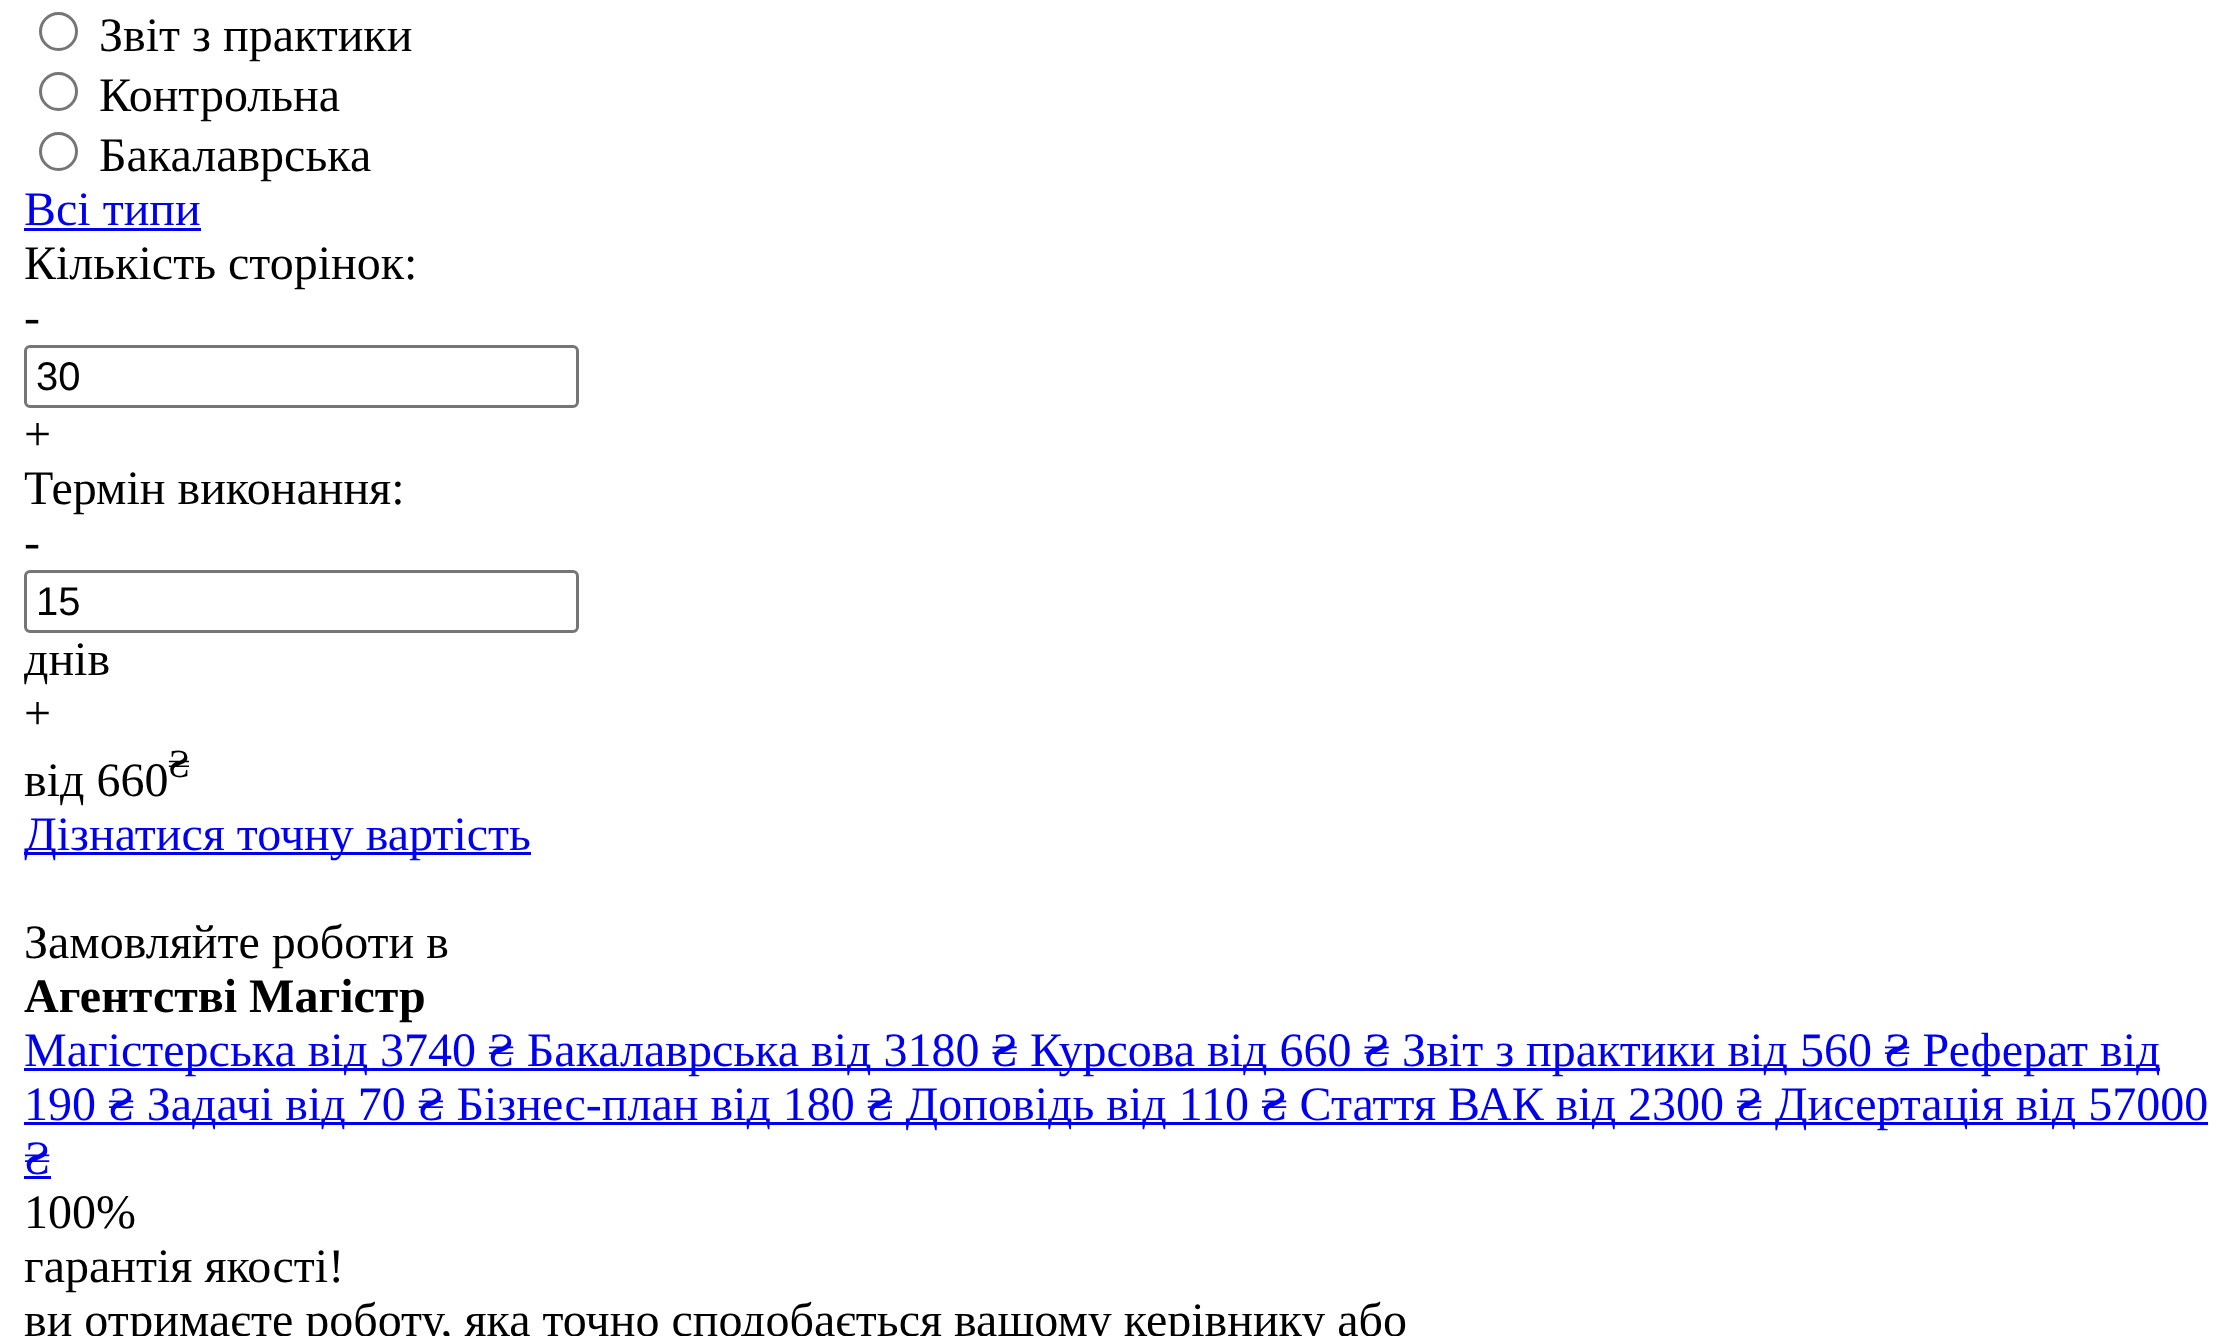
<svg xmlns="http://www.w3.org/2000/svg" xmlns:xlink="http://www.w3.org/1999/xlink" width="2238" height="1336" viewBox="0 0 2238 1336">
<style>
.cls-1{font:48px Liberation Serif;fill:#000000}
.cls-2{font:48px Liberation Serif;fill:#0000ee}
.cls-3{font:40px Liberation Sans;fill:#000000}
.cls-4{font:40px Liberation Serif;fill:#000000}
.cls-5{font:bold 48px Liberation Serif;fill:#000000}
</style>
<rect width="100%" height="100%" fill="#ffffff"/>
<circle fill="none" stroke="#767676" stroke-width="3" cx="58.5" cy="31.5" r="18"/>
<circle fill="none" stroke="#767676" stroke-width="3" cx="58.5" cy="91.5" r="18"/>
<circle fill="none" stroke="#767676" stroke-width="3" cx="58.5" cy="151.5" r="18"/>
<rect fill="#0000ee" x="24" y="228" width="177" height="3"/>
<rect fill="none" stroke="#767676" stroke-width="3" x="25.5" y="346.5" width="552" height="60" rx="4.5"/>
<rect fill="none" stroke="#767676" stroke-width="3" x="25.5" y="571.5" width="552" height="60" rx="4.5"/>
<rect fill="#0000ee" x="24" y="852" width="507" height="3"/>
<rect fill="#0000ee" x="24" y="1068" width="774" height="3"/>
<rect fill="#0000ee" x="798" y="1068" width="396" height="3"/>
<rect fill="#0000ee" x="1194" y="1068" width="966" height="3"/>
<rect fill="#0000ee" x="24" y="1122" width="2184" height="3"/>
<rect fill="#0000ee" x="24" y="1176" width="27" height="3"/>
<text class="cls-1"><tspan x="99" y="51">Звіт з практики</tspan><tspan x="99" y="111">Контрольна</tspan><tspan x="99" y="171">Бакалаврська</tspan></text>
<text class="cls-2" x="24" y="225">Всі типи</text>
<text class="cls-1"><tspan x="24" y="279">Кількість сторінок:</tspan><tspan x="24" y="333">-</tspan></text>
<text class="cls-3" x="36" y="390">30</text>
<text class="cls-1"><tspan x="24" y="450">+</tspan><tspan x="24" y="504">Термін виконання:</tspan><tspan x="24" y="558">-</tspan></text>
<text class="cls-3" x="36" y="615">15</text>
<text class="cls-1"><tspan x="24" y="675">днів</tspan><tspan x="24" y="729">+</tspan><tspan x="24" y="796">від 660</tspan></text>
<text class="cls-4" x="168" y="777">₴</text>
<text class="cls-2" x="24" y="850">Дізнатися точну вартість</text>
<text class="cls-1" x="24" y="958">Замовляйте роботи в</text>
<text class="cls-5" x="24" y="1012">Агентстві Магістр</text>
<text class="cls-2" x="24" y="1066">Магістерська від 3740 ₴ Бакалаврська</text>
<text class="cls-2" x="811" y="1066">від 3180 ₴ Курсова</text>
<text class="cls-2" x="1207" y="1066">від 660 ₴ Звіт з практики від 560 ₴ Реферат від</text>
<text class="cls-2"><tspan x="24" y="1120">190 ₴ Задачі від 70 ₴ Бізнес-план від 180 ₴ Доповідь від 110 ₴ Стаття ВАК від 2300 ₴ Дисертація від 57000</tspan><tspan x="24" y="1174">₴</tspan></text>
<text class="cls-1"><tspan x="24" y="1228">100%</tspan><tspan x="24" y="1282">гарантія якості!</tspan><tspan x="24" y="1336">ви отримаєте роботу, яка точно сподобається вашому керівнику або</tspan></text>
</svg>
